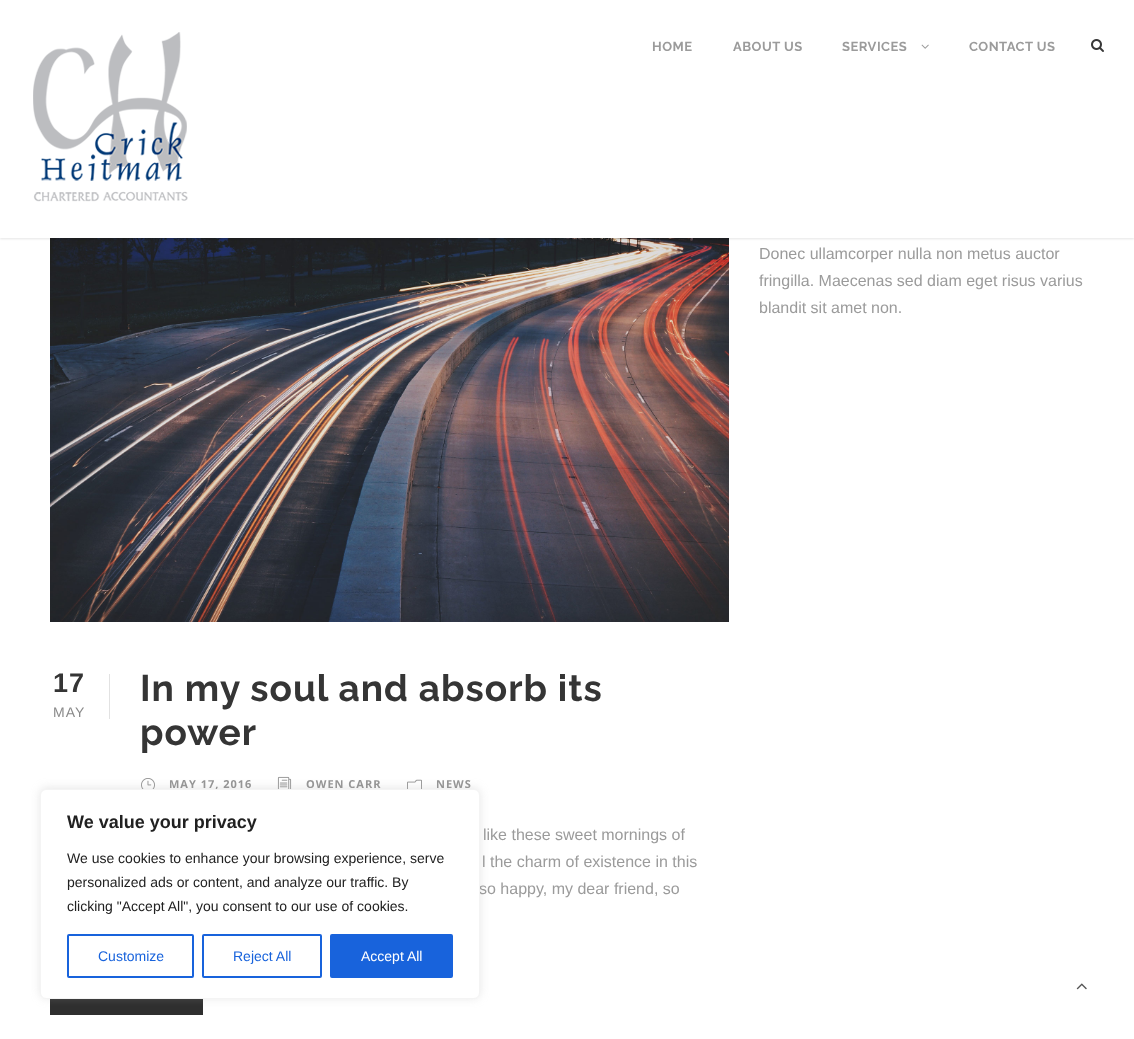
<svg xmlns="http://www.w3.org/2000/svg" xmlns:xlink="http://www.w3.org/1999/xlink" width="1134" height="1039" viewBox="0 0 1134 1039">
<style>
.cls-1{font:bold 13px Raleway;letter-spacing:0.5px;fill:#9b9b9b}
.cls-2{font:16px Liberation Sans;fill:#9b9b9b}
.cls-3{font:bold 27px Liberation Sans;letter-spacing:1px;fill:#353535}
.cls-4{font:14px Liberation Sans;letter-spacing:1px;fill:#8a8a8a}
.cls-5{font:bold 37px Raleway;letter-spacing:1px;fill:#353535}
.cls-6{font:bold 11px Open Sans;letter-spacing:1px;fill:#959595}
.cls-7{font:bold 18px Liberation Sans;fill:#212121}
.cls-8{font:14px Liberation Sans;fill:#212121}
.cls-9{font:14px Liberation Sans;fill:#1863dc}
.cls-10{font:14px Liberation Sans;fill:#ffffff}
</style>
<rect width="100%" height="100%" fill="#ffffff"/>
<image xlink:href="image3.png" x="50" y="238" width="679" height="384"/>
<rect fill="#000000" fill-opacity="0.1" filter="blur(1px)" x="0" y="1" width="1134" height="238"/>
<rect fill="#ffffff" x="0" y="0" width="1134" height="238"/>
<image xlink:href="image0.png" x="33" y="32" width="155" height="170"/>
<image xlink:href="image1.png" x="921" y="44" width="8" height="5"/>
<image xlink:href="image2.png" x="1091" y="39" width="13" height="13"/>
<rect fill="#e2e2e2" x="109" y="674" width="1" height="45"/>
<image xlink:href="image4.png" x="141" y="778" width="14" height="11"/>
<image xlink:href="image5.png" x="277" y="776" width="15" height="13"/>
<image xlink:href="image6.png" x="407" y="779" width="15" height="10"/>
<rect fill="#2f2f2f" x="50" y="999" width="153" height="16"/>
<rect fill="#acabab" fill-opacity="0.3" filter="blur(5px)" x="40" y="788" width="440" height="210" rx="6"/>
<image xlink:href="image7.png" x="1076" y="983" width="11" height="7"/>
<text class="cls-1" x="652" y="51">HOME</text>
<text class="cls-1" x="733" y="51">ABOUT US</text>
<text class="cls-1" x="842" y="51">SERVICES</text>
<text class="cls-1" x="969" y="51">CONTACT US</text>
<text class="cls-2"><tspan x="759" y="259">Donec ullamcorper nulla non metus auctor</tspan><tspan x="759" y="286">fringilla. Maecenas sed diam eget risus varius</tspan><tspan x="759" y="313">blandit sit amet non.</tspan></text>
<text class="cls-3" x="53" y="692">17</text>
<text class="cls-4" x="53" y="717">MAY</text>
<text class="cls-5"><tspan x="140" y="701">In my soul and absorb its</tspan><tspan x="140" y="745">power</tspan></text>
<text class="cls-6" x="169" y="788">MAY 17, 2016</text>
<text class="cls-6" x="306" y="788">OWEN CARR</text>
<text class="cls-6" x="436" y="788">NEWS</text>
<text class="cls-2" x="483" y="840">like these sweet mornings of</text>
<text class="cls-2" x="482" y="867">l the charm of existence in this</text>
<text class="cls-2" x="479" y="894">so happy, my dear friend, so</text>
<rect fill="#ffffff" stroke="#f4f4f4" x="40.5" y="789.5" width="439" height="209" rx="5.5"/>
<text class="cls-7" x="67" y="828">We value your privacy</text>
<text class="cls-8"><tspan x="67" y="863">We use cookies to enhance your browsing experience, serve</tspan><tspan x="67" y="887">personalized ads or content, and analyze our traffic. By</tspan><tspan x="67" y="911">clicking "Accept All", you consent to our use of cookies.</tspan></text>
<rect fill="none" stroke="#1863dc" stroke-width="2" x="68" y="935" width="125" height="42" rx="1"/>
<text class="cls-9" x="98" y="961">Customize</text>
<rect fill="none" stroke="#1863dc" stroke-width="2" x="203" y="935" width="118" height="42" rx="1"/>
<text class="cls-9" x="233" y="961">Reject All</text>
<rect fill="#1863dc" stroke="#1863dc" stroke-width="2" x="331" y="935" width="121" height="42" rx="1"/>
<text class="cls-10" x="361" y="961">Accept All</text>
</svg>
